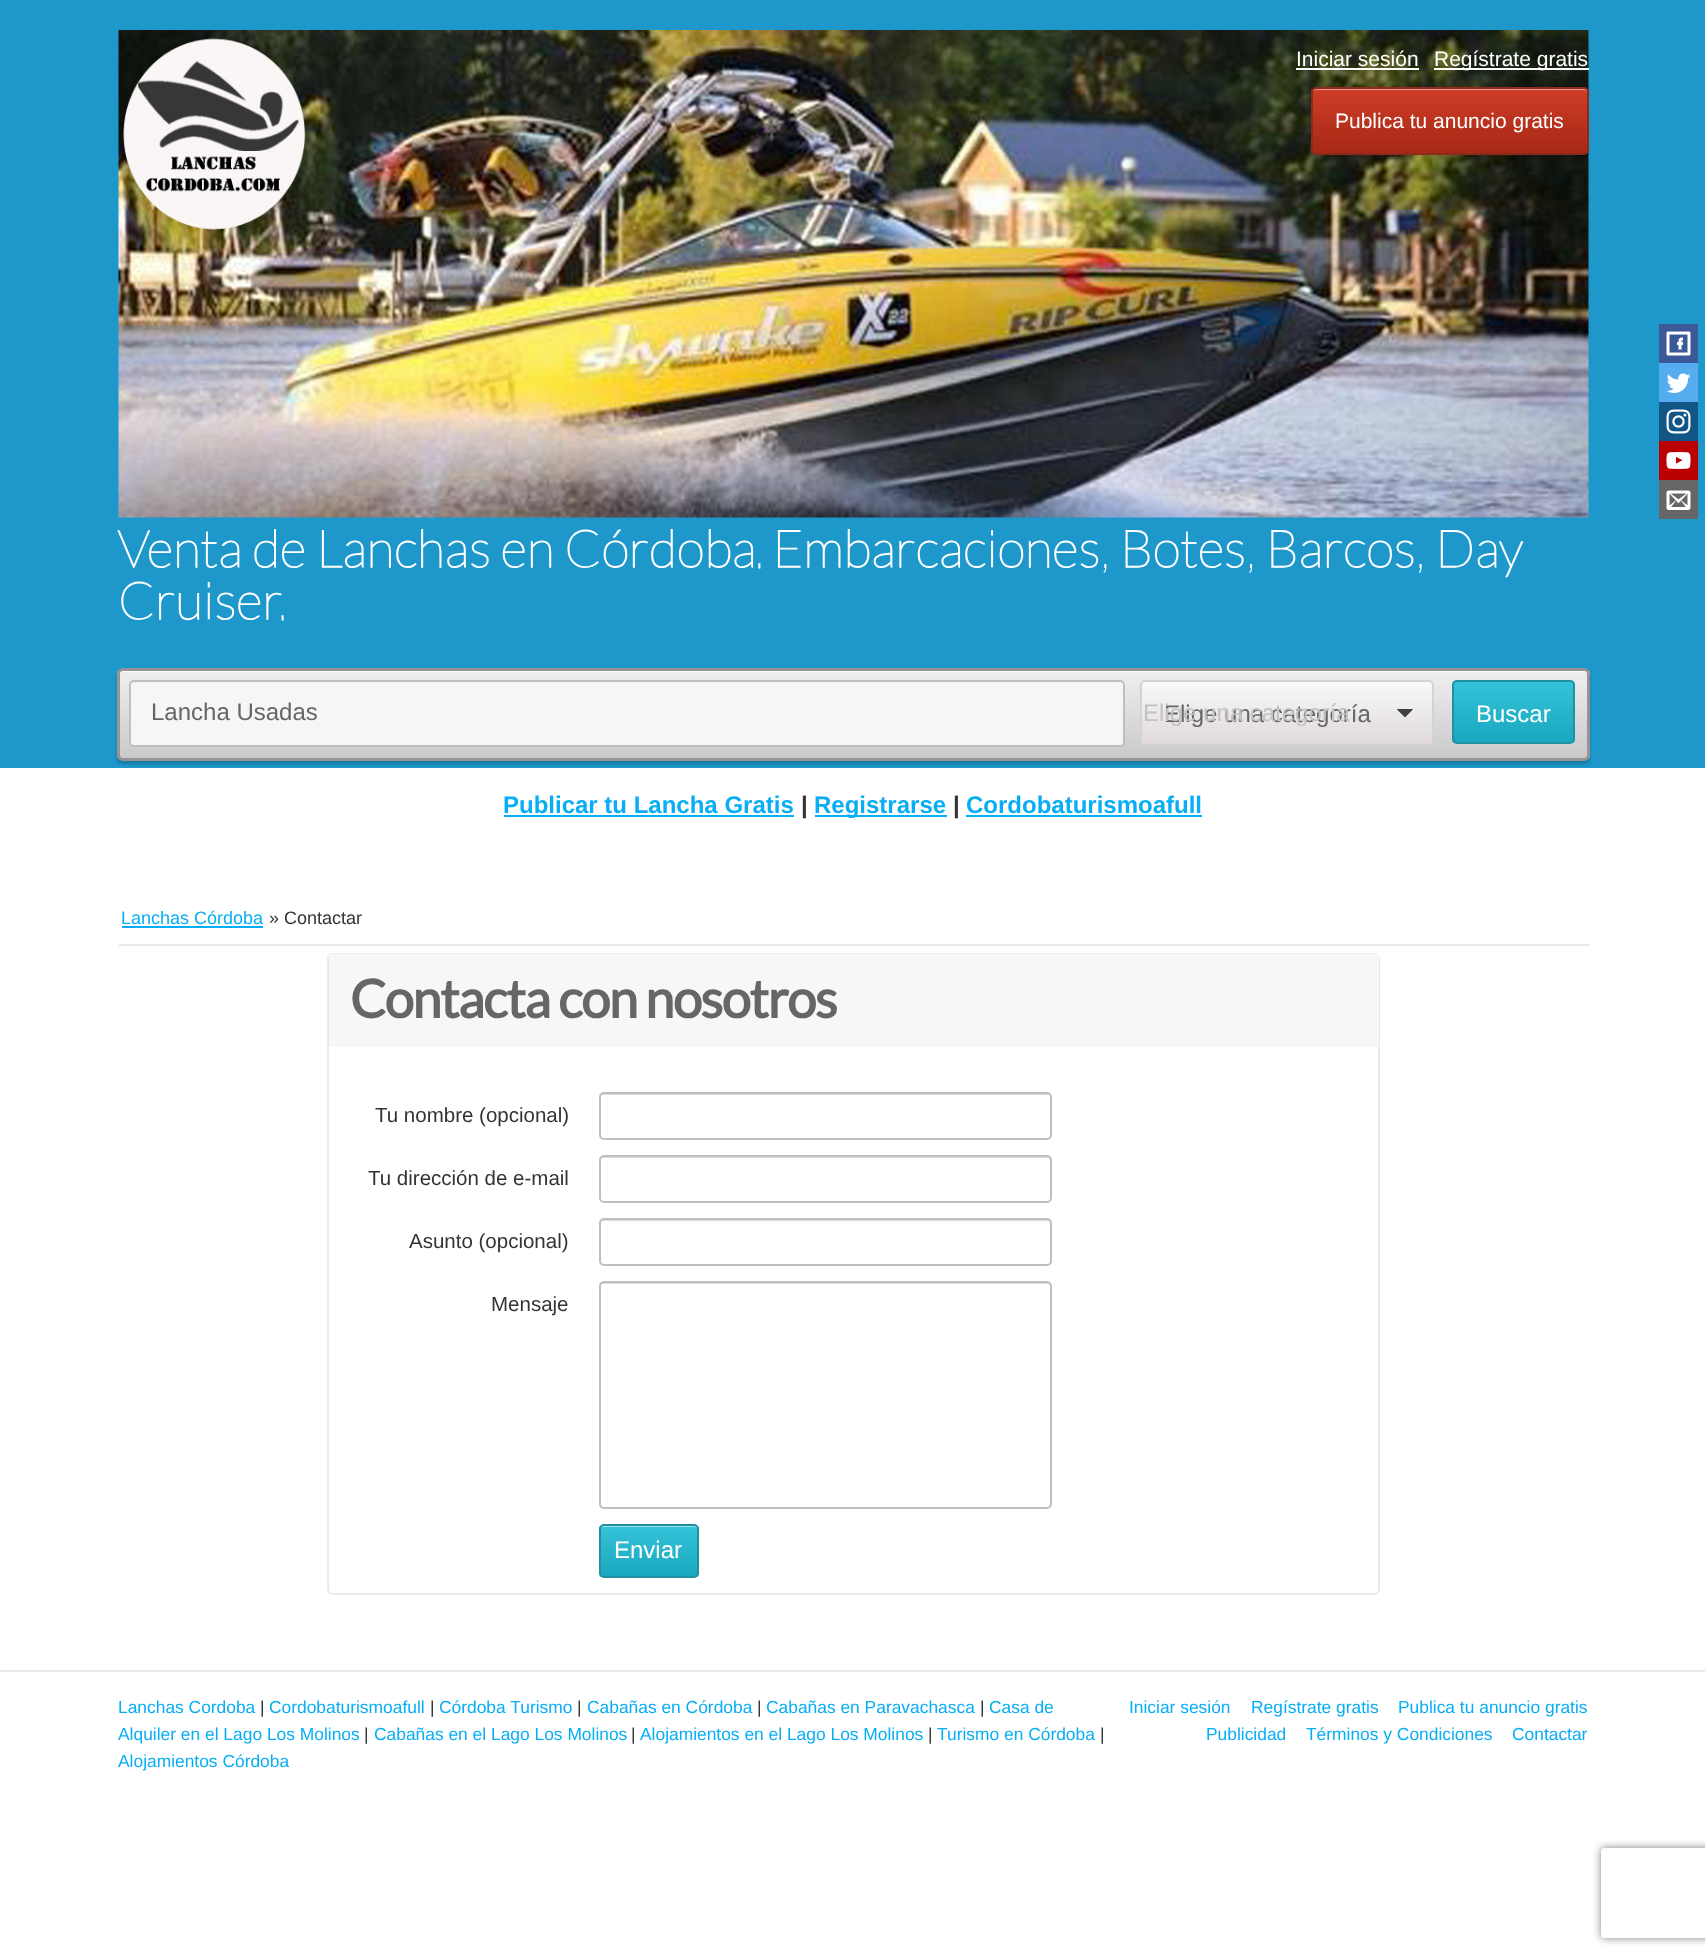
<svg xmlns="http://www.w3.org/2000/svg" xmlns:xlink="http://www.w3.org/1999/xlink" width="1705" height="1958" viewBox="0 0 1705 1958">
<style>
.cls-1{font:21px Liberation Sans;fill:#ffffff}
.cls-2{font:200 51.85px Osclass;fill:#ffffff}
.cls-3{font:24px Liberation Sans;fill:#666666}
.cls-4{font:24px Liberation Sans;fill:#c3c1c1}
.cls-5{font:19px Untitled;fill:#404040}
.cls-6{font:24px Liberation Sans;fill:#ffffff}
.cls-7{font:bold 24px Liberation Sans;fill:#07aef5}
.cls-8{font:bold 24px Liberation Sans;fill:#333333}
.cls-9{font:18px Liberation Sans;fill:#07aef5}
.cls-10{font:18px Liberation Sans;fill:#333333}
.cls-11{font:bold 52.75px Osclass;letter-spacing:-1.6px;fill:#666666}
.cls-12{font:20.5px Liberation Sans;fill:#333333}
.cls-13{font:17.4px Liberation Sans;fill:#07aef5}
.cls-14{font:17.4px Liberation Sans;fill:#333333}
</style>
<defs>
<clipPath id="clip1"><rect x="1311" y="87" width="278" height="68" rx="5"/></clipPath>
<linearGradient id="g1" gradientUnits="userSpaceOnUse" x1="1450" y1="88" x2="1450" y2="153"><stop offset="0" stop-color="#ce3d27"/><stop offset="1" stop-color="#a72915"/></linearGradient>
<clipPath id="clip2"><rect x="117" y="668" width="1473" height="93" rx="6"/></clipPath>
<linearGradient id="g2" gradientUnits="userSpaceOnUse" x1="854" y1="670" x2="854" y2="758"><stop offset="0" stop-color="#f0f0f0"/><stop offset="1" stop-color="#c9c9c9"/></linearGradient>
<clipPath id="clip3"><rect x="1140" y="680" width="294" height="66" rx="5"/></clipPath>
<linearGradient id="g3" gradientUnits="userSpaceOnUse" x1="1287" y1="681" x2="1287" y2="744"><stop offset="0" stop-color="#f9f9f9"/><stop offset="1" stop-color="#e0dada"/></linearGradient>
<clipPath id="clip4"><rect x="1452" y="680" width="123" height="64" rx="5"/></clipPath>
<linearGradient id="g4" gradientUnits="userSpaceOnUse" x1="1514" y1="681" x2="1514" y2="743"><stop offset="0" stop-color="#35c3d9"/><stop offset="1" stop-color="#18a7be"/></linearGradient>
<clipPath id="clip5"><rect x="599" y="1524" width="100" height="54" rx="5"/></clipPath>
<linearGradient id="g5" gradientUnits="userSpaceOnUse" x1="649" y1="1526" x2="649" y2="1577"><stop offset="0" stop-color="#35c3d9"/><stop offset="1" stop-color="#18a7be"/></linearGradient>
<clipPath id="clip6"><path d="M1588 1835H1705V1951H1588ZM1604 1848H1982C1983.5 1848 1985 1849.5 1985 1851V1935C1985 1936.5 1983.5 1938 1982 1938H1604C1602.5 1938 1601 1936.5 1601 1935V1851C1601 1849.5 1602.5 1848 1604 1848Z" clip-rule="evenodd"/></clipPath>
</defs>
<rect width="100%" height="100%" fill="#ffffff"/>
<rect fill="#1e97cb" x="0" y="0" width="1705" height="768"/>
<image xlink:href="image5.png" x="118" y="30" width="1471" height="488"/>
<rect fill="#ffffff" x="1296" y="68" width="123" height="2"/>
<rect fill="#ffffff" x="1434" y="68" width="155" height="2"/>
<g clip-path="url(#clip1)">
<rect fill="url(#g1)" x="1311" y="89" width="278" height="64"/>
</g>
<path fill="#e9988b" d="M1316 90H1584C1586 90 1587 91 1587 93V92C1587 90 1586 89 1584 89H1316C1315 89 1314 90 1313 91Z"/>
<rect fill="none" stroke="#8d2a1b" stroke-width="2" x="1312" y="88" width="276" height="66" rx="4"/>
<rect fill="#3b5998" x="1659" y="324" width="39" height="39"/>
<image xlink:href="image0.png" x="1666" y="331" width="25" height="25"/>
<rect fill="#55acee" x="1659" y="363" width="39" height="39"/>
<image xlink:href="image1.png" x="1666" y="373" width="25" height="20"/>
<rect fill="#125688" x="1659" y="402" width="39" height="39"/>
<image xlink:href="image2.png" x="1666" y="409" width="25" height="25"/>
<rect fill="#bb0000" x="1659" y="441" width="39" height="39"/>
<image xlink:href="image3.png" x="1666" y="452" width="25" height="17"/>
<rect fill="#666666" x="1659" y="480" width="39" height="39"/>
<image xlink:href="image4.png" x="1666" y="490" width="25" height="20"/>
<rect fill="#000000" fill-opacity="0.2" filter="blur(1.5px)" x="117" y="671" width="1473" height="93" rx="6"/>
<g clip-path="url(#clip2)">
<rect fill="url(#g2)" x="117" y="671" width="1473" height="87"/>
</g>
<path fill="#ffffff" d="M123 672H1584C1586 672 1587 673 1587 675V674C1587 672 1586 671 1584 671H123C121 671 120 672 120 674V675C120 673 121 672 123 672Z"/>
<rect fill="none" stroke="#989393" stroke-width="3" x="118.5" y="669.5" width="1470" height="90" rx="4.5"/>
<rect fill="#f6f6f6" stroke="#bfbfbf" stroke-width="2" x="130" y="681" width="994" height="65" rx="4"/>
<g clip-path="url(#clip3)">
<rect fill="url(#g3)" x="1140" y="681" width="294" height="63"/>
</g>
<rect fill="none" stroke="#d3d3d3" stroke-width="2" x="1141" y="681" width="292" height="64" rx="4"/>
<g clip-path="url(#clip4)">
<rect fill="url(#g4)" x="1452" y="681" width="123" height="62"/>
</g>
<rect fill="none" stroke="#1f91a3" stroke-width="2" x="1453" y="681" width="121" height="62" rx="4"/>
<rect fill="#07aef5" x="504" y="815" width="290" height="2"/>
<rect fill="#07aef5" x="815" y="815" width="132" height="2"/>
<rect fill="#07aef5" x="966" y="815" width="236" height="2"/>
<rect fill="#eaeaea" x="119" y="944" width="1470" height="2"/>
<rect fill="#07aef5" x="122" y="926" width="141" height="2"/>
<rect fill="none" stroke="#eaeaea" stroke-width="2" x="328" y="954" width="1051" height="640" rx="5"/>
<rect fill="#f7f7f7" x="329" y="954" width="1050" height="93"/>
<path fill="#dfd8d8" d="M603 1095H1047C1049 1095 1050 1096 1050 1098V1096L1048 1094H603C601 1094 600 1096 600 1098C600 1096 601 1095 603 1095Z"/>
<rect fill="none" stroke="#bfbfbf" stroke-width="2" x="600" y="1093" width="451" height="46" rx="4"/>
<path fill="#dfd8d8" d="M603 1158H1047C1049 1158 1050 1159 1050 1161V1159L1048 1157H603C601 1157 600 1159 600 1161C600 1159 601 1158 603 1158Z"/>
<rect fill="none" stroke="#bfbfbf" stroke-width="2" x="600" y="1156" width="451" height="46" rx="4"/>
<path fill="#dfd8d8" d="M603 1221H1047C1049 1221 1050 1222 1050 1224V1222L1048 1220H603C601 1220 600 1222 600 1224C600 1222 601 1221 603 1221Z"/>
<rect fill="none" stroke="#bfbfbf" stroke-width="2" x="600" y="1219" width="451" height="46" rx="4"/>
<path fill="#dfd8d8" d="M603 1284H1047C1049 1284 1050 1285 1050 1287V1285L1048 1283H603C601 1283 600 1285 600 1287C600 1285 601 1284 603 1284Z"/>
<rect fill="none" stroke="#bfbfbf" stroke-width="2" x="600" y="1282" width="451" height="226" rx="4"/>
<g clip-path="url(#clip5)">
<rect fill="url(#g5)" x="599" y="1526" width="100" height="51"/>
</g>
<path fill="#a0e3ed" d="M603 1527H694C696 1527 698 1528 698 1530C698 1522 683 1526 680 1526H618C615 1526 600 1522 600 1530C600 1528 601 1527 603 1527Z"/>
<rect fill="none" stroke="#1f91a3" stroke-width="2" x="600" y="1525" width="98" height="52" rx="4"/>
<rect fill="#eaeaea" x="0" y="1670" width="1705" height="2"/>
<g clip-path="url(#clip6)">
<rect fill="#808080" filter="blur(4px)" x="1601" y="1848" width="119" height="90" rx="3"/>
</g>
<text class="cls-1" x="1296" y="66">Iniciar sesión</text>
<text class="cls-1" x="1434" y="66">Regístrate gratis</text>
<text class="cls-1" x="1335" y="128">Publica tu anuncio gratis</text>
<text class="cls-2"><tspan x="118" y="567">Venta de Lanchas en Córdoba. Embarcaciones, Botes, Barcos, Day</tspan><tspan x="118" y="619">Cruiser.</tspan></text>
<text class="cls-3" x="151" y="720">Lancha Usadas</text>
<text class="cls-3" x="1164" y="722">Elige una categoría</text>
<text class="cls-4" x="1143" y="721">Elige una categoría</text>
<text class="cls-5" x="1397" y="717">0</text>
<text class="cls-6" x="1476" y="722">Buscar</text>
<text class="cls-7" x="503" y="813">Publicar tu Lancha Gratis</text>
<text class="cls-8" x="801" y="813">|</text>
<text class="cls-7" x="814" y="813">Registrarse</text>
<text class="cls-8" x="953" y="813">|</text>
<text class="cls-7" x="966" y="813">Cordobaturismoafull</text>
<text class="cls-9" x="121" y="924">Lanchas Córdoba</text>
<text class="cls-10" x="269" y="924">» Contactar</text>
<text class="cls-11" x="350" y="1018">Contacta con nosotros</text>
<text class="cls-12" x="375" y="1122">Tu nombre (opcional)</text>
<text class="cls-12" x="368" y="1185">Tu dirección de e-mail</text>
<text class="cls-12" x="409" y="1248">Asunto (opcional)</text>
<text class="cls-12" x="491" y="1311">Mensaje</text>
<text class="cls-6" x="614" y="1558">Enviar</text>
<text class="cls-13" x="118" y="1713">Lanchas Cordoba</text>
<text class="cls-14" x="260" y="1713">|</text>
<text class="cls-13" x="269" y="1713">Cordobaturismoafull</text>
<text class="cls-14" x="430" y="1713">|</text>
<text class="cls-13" x="439" y="1713">Córdoba Turismo</text>
<text class="cls-14" x="577" y="1713">|</text>
<text class="cls-13" x="587" y="1713">Cabañas en Córdoba</text>
<text class="cls-14" x="757" y="1713">|</text>
<text class="cls-13" x="766" y="1713">Cabañas en Paravachasca</text>
<text class="cls-14" x="980" y="1713">|</text>
<text class="cls-13" x="989" y="1713">Casa de</text>
<text class="cls-13" x="1129" y="1713">Iniciar sesión</text>
<text class="cls-13" x="1251" y="1713">Regístrate gratis</text>
<text class="cls-13" x="1398" y="1713">Publica tu anuncio gratis</text>
<text class="cls-13" x="118" y="1740">Alquiler en el Lago Los Molinos</text>
<text class="cls-14" x="364" y="1740">|</text>
<text class="cls-13" x="374" y="1740">Cabañas en el Lago Los Molinos</text>
<text class="cls-14" x="631" y="1740">|</text>
<text class="cls-13" x="640" y="1740">Alojamientos en el Lago Los Molinos</text>
<text class="cls-14" x="928" y="1740">|</text>
<text class="cls-13" x="937" y="1740">Turismo en Córdoba</text>
<text class="cls-14" x="1100" y="1740">|</text>
<text class="cls-13" x="1206" y="1740">Publicidad</text>
<text class="cls-13" x="1306" y="1740">Términos y Condiciones</text>
<text class="cls-13" x="1512" y="1740">Contactar</text>
<text class="cls-13" x="118" y="1767">Alojamientos Córdoba</text>
</svg>
